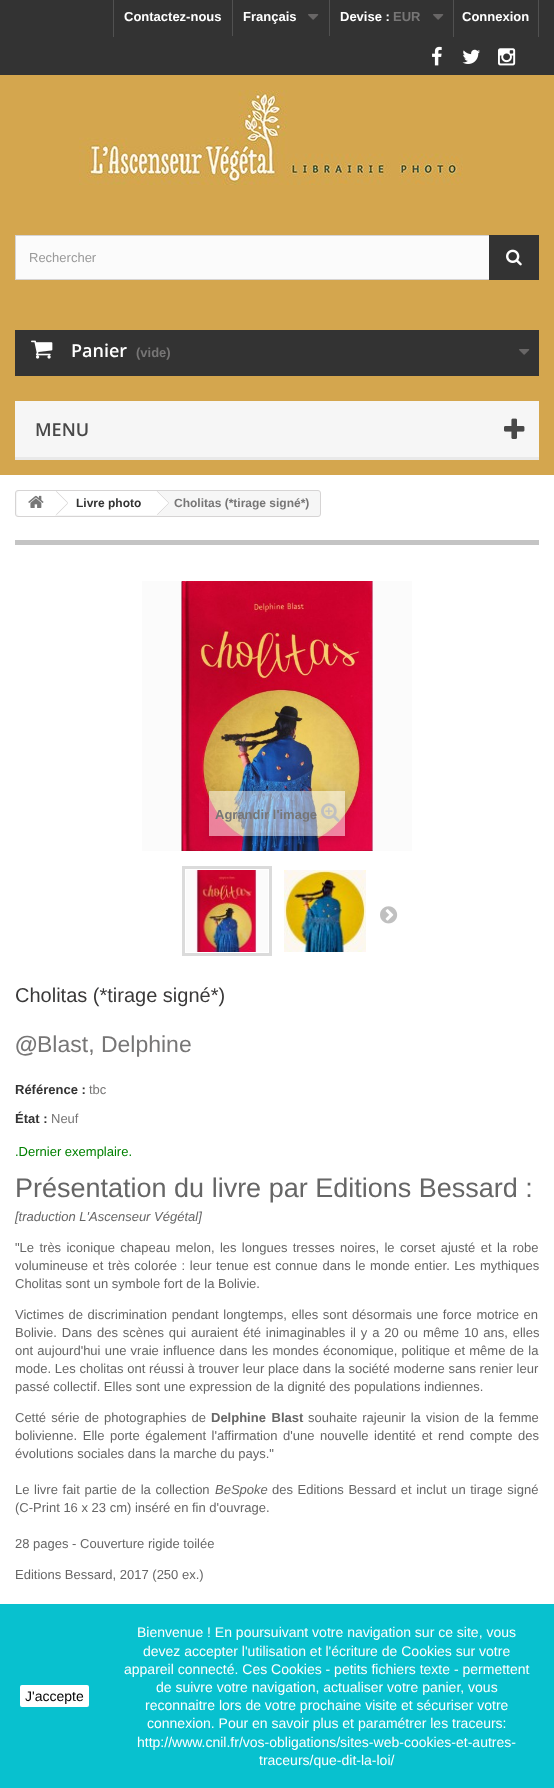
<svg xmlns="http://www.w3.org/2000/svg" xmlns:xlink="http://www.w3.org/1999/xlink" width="554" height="1788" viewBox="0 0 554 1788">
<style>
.cls-1{font:bold 13px Liberation Sans;fill:#ffffff}
.cls-2{font:bold 13px Liberation Sans;fill:#777676}
.cls-3{font:13px Liberation Sans;fill:#999999}
.cls-4{font:600 18px Open Sans;fill:#ffffff}
.cls-5{font:600 18px Open Sans;fill:#484848}
.cls-6{font:bold 12px Liberation Sans;fill:#333333}
.cls-7{font:bold 12px Liberation Sans;fill:#777676}
.cls-8{font:20px Liberation Sans;fill:#3a3939}
.cls-9{font:bold 23px Liberation Sans;fill:#777676}
.cls-10{font:23px Liberation Sans;fill:#777676}
.cls-11{font:bold 13px Liberation Sans;fill:#333333}
.cls-12{font:13px Liberation Sans;fill:#777676}
.cls-13{font:13px Liberation Sans;fill:#008000}
.cls-14{font:27px Liberation Sans;fill:#666666}
.cls-15{font:italic 13px Liberation Sans;fill:#666666}
.cls-16{font:13px Liberation Sans;fill:#666666}
.cls-17{font:bold 13px Liberation Sans;fill:#666666}
.cls-18{font:14px Liberation Sans;fill:#000000}
.cls-19{font:14px Liberation Sans;fill:#ffffff}
</style>
<defs>
<clipPath id="clip1"><path d="M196 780H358V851H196ZM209 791H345V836H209Z" clip-rule="evenodd"/></clipPath>
</defs>
<rect width="100%" height="100%" fill="#ffffff"/>
<rect fill="#d4a64e" x="0" y="75" width="554" height="400"/>
<rect fill="#333333" x="0" y="0" width="554" height="75"/>
<rect fill="#515151" x="113" y="0" width="1" height="37"/>
<rect fill="#515151" x="232" y="0" width="1" height="36"/>
<image xlink:href="image0.png" x="308" y="14" width="11" height="6"/>
<rect fill="#515151" x="329" y="0" width="1" height="36"/>
<image xlink:href="image0.png" x="433" y="14" width="11" height="6"/>
<rect fill="#515151" x="538" y="0" width="1" height="37"/>
<rect fill="#515151" x="453" y="0" width="1" height="37"/>
<image xlink:href="image1.png" x="432" y="46" width="10" height="20"/>
<image xlink:href="image2.png" x="462" y="49" width="18" height="15"/>
<image xlink:href="image3.png" x="498" y="48" width="18" height="18"/>
<image xlink:href="image4.png" x="79" y="90" width="384" height="95"/>
<rect fill="#fbfbfb" x="16" y="236" width="473" height="43"/>
<rect fill="none" stroke="#d6d4d4" x="15.5" y="235.5" width="523" height="44"/>
<rect fill="#333333" x="489" y="235" width="50" height="45"/>
<image xlink:href="image5.png" x="506" y="249" width="16" height="17"/>
<rect fill="#333333" x="15" y="330" width="524" height="46"/>
<image xlink:href="image6.png" x="31" y="340" width="22" height="19"/>
<image xlink:href="image0.png" x="519" y="349" width="11" height="6"/>
<rect fill="#f6f6f6" x="15" y="401" width="524" height="56"/>
<rect fill="#e9e9e9" x="15" y="457" width="524" height="3"/>
<image xlink:href="image7.png" x="504" y="418" width="21" height="21"/>
<rect fill="#f6f6f6" stroke="#d6d4d4" x="15.5" y="490.5" width="305" height="26" rx="2.5"/>
<path fill="#ffffff" d="M20 491H55V516H20C18.5 516 17 514.5 17 513V494C17 492.5 18.5 491 20 491Z"/>
<image xlink:href="image8.png" x="28" y="495" width="16" height="13"/>
<rect fill="#ffffff" x="55" y="491" width="101" height="24"/>
<path fill="#d6d4d4" d="M56.5 491L68 502.5L67.5 503L56 491.5ZM67.5 503L68 503.5L56.5 515L56 514.5Z"/>
<path fill="#ffffff" d="M158.5 491.5L168.5 501.5C169 502.5 169 503.5 168.5 504.5L158.5 514.5C157.5 515 156.5 515 155.5 514.5L145.5 504.5C145 503.5 145 502.5 145.5 501.5L155.5 491.5C156.5 491 157.5 491 158.5 491.5Z"/>
<path fill="#d6d4d4" d="M157.5 491L169 502.5L168.5 503L157 491.5ZM168.5 503L169 503.5L157.5 515L157 514.5Z"/>
<rect fill="#c4c4c4" x="15" y="540" width="524" height="5"/>
<rect fill="#fbfbfb" x="142" y="581" width="270" height="270"/>
<image xlink:href="image9.png" x="181" y="581" width="193" height="270"/>
<g clip-path="url(#clip1)">
<rect fill="#000000" fill-opacity="0.16" filter="blur(4px)" x="209" y="793" width="136" height="45"/>
</g>
<rect fill="#ffffff" fill-opacity="0.5" x="209" y="791" width="136" height="45"/>
<image xlink:href="image10.png" x="321" y="803" width="19" height="19"/>
<rect fill="#fbfbfb" x="186" y="870" width="82" height="82"/>
<rect fill="none" stroke="#dbdbdb" stroke-width="3" x="183.5" y="867.5" width="87" height="87"/>
<image xlink:href="image11.png" x="195" y="870" width="62" height="82"/>
<image xlink:href="image12.png" x="284" y="870" width="82" height="82"/>
<image xlink:href="image13.png" x="380" y="906" width="18" height="18"/>
<rect fill="#08c1cf" x="0" y="1604" width="554" height="184"/>
<rect fill="#ffffff" x="20" y="1685" width="69" height="22" rx="2"/>
<text class="cls-1" x="124" y="21">Contactez-nous</text>
<text class="cls-1" x="243" y="21">Français</text>
<text class="cls-1" x="340" y="21">Devise :</text>
<text class="cls-2" x="393" y="21">EUR</text>
<text class="cls-1" x="462" y="21">Connexion</text>
<text class="cls-3" x="29" y="262">Rechercher</text>
<text class="cls-4" x="71" y="357">Panier</text>
<text class="cls-2" x="136" y="357">(vide)</text>
<text class="cls-5" x="35" y="436">MENU</text>
<text class="cls-6" x="76" y="507">Livre photo</text>
<text class="cls-7" x="174" y="507">Cholitas (*tirage signé*)</text>
<text class="cls-2" x="215" y="819">Agrandir l'image</text>
<text class="cls-8" x="15" y="1002">Cholitas (*tirage signé*)</text>
<text class="cls-9" x="15" y="1052">@</text>
<text class="cls-10" x="37" y="1052">Blast, Delphine</text>
<text class="cls-11" x="15" y="1094">Référence :</text>
<text class="cls-12" x="89" y="1094">tbc</text>
<text class="cls-11" x="15" y="1123">État :</text>
<text class="cls-12" x="51" y="1123">Neuf</text>
<text class="cls-13" x="15" y="1156">.Dernier exemplaire.</text>
<text class="cls-14" x="15" y="1197">Présentation du livre par Editions Bessard :</text>
<text class="cls-15" x="15" y="1221">[traduction L'Ascenseur Végétal]</text>
<text class="cls-16"><tspan x="15" y="1252" word-spacing="1.75">"Le très iconique chapeau melon, les longues tresses noires, le corset ajusté et la robe</tspan><tspan x="15" y="1270" word-spacing="1">volumineuse et très colorée : leur tenue est connue dans le monde entier. Les mythiques</tspan><tspan x="15" y="1288">Cholitas sont un symbole fort de la Bolivie.</tspan></text>
<text class="cls-16"><tspan x="15" y="1319" word-spacing="1">Victimes de discrimination pendant longtemps, elles sont désormais une force motrice en</tspan><tspan x="15" y="1337" word-spacing="1.25">Bolivie. Dans des scènes qui auraient été inimaginables il y a 20 ou même 10 ans, elles</tspan><tspan x="15" y="1355" word-spacing="0.6">ont aujourd'hui une vraie influence dans les mondes économique, politique et même de la</tspan><tspan x="15" y="1373" word-spacing="0.1">mode. Les cholitas ont réussi à trouver leur place dans la société moderne sans renier leur</tspan><tspan x="15" y="1391">passé collectif. Elles sont une expression de la dignité des populations indiennes.</tspan></text>
<text class="cls-16" x="15" y="1422" word-spacing="1.5">Cetté série de photographies de</text>
<text class="cls-17" x="211" y="1422" word-spacing="2">Delphine Blast</text>
<text class="cls-16" x="308" y="1422" word-spacing="1.5">souhaite rajeunir la vision de la femme</text>
<text class="cls-16"><tspan x="15" y="1440" word-spacing="2">bolivienne. Elle porte également l'affirmation d'une nouvelle identité et rend compte des</tspan><tspan x="15" y="1458">évolutions sociales dans la marche du pays."</tspan></text>
<text class="cls-16" x="15" y="1494" word-spacing="1">Le livre fait partie de la collection</text>
<text class="cls-15" x="215" y="1494">BeSpoke</text>
<text class="cls-16" x="272" y="1494" word-spacing="1">des Editions Bessard et inclut un tirage signé</text>
<text class="cls-16" x="15" y="1512">(C-Print 16 x 23 cm) inséré en fin d'ouvrage.</text>
<text class="cls-16" x="15" y="1548">28 pages - Couverture rigide toilée</text>
<text class="cls-16" x="15" y="1579">Editions Bessard, 2017 (250 ex.)</text>
<text class="cls-18" x="25" y="1701">J'accepte</text>
<text class="cls-19" x="137" y="1637">Bienvenue ! En poursuivant votre navigation sur ce site, vous</text>
<text class="cls-19" x="143" y="1656">devez accepter l'utilisation et l'écriture de Cookies sur votre</text>
<text class="cls-19" x="124" y="1674">appareil connecté. Ces Cookies - petits fichiers texte - permettent</text>
<text class="cls-19" x="156" y="1692">de suivre votre navigation, actualiser votre panier, vous</text>
<text class="cls-19" x="145" y="1710">reconnaitre lors de votre prochaine visite et sécuriser votre</text>
<text class="cls-19" x="147" y="1728">connexion. Pour en savoir plus et paramétrer les traceurs:</text>
<text class="cls-19" x="137" y="1747">http://www.cnil.fr/vos-obligations/sites-web-cookies-et-autres-</text>
<text class="cls-19" x="259" y="1765">traceurs/que-dit-la-loi/</text>
</svg>
